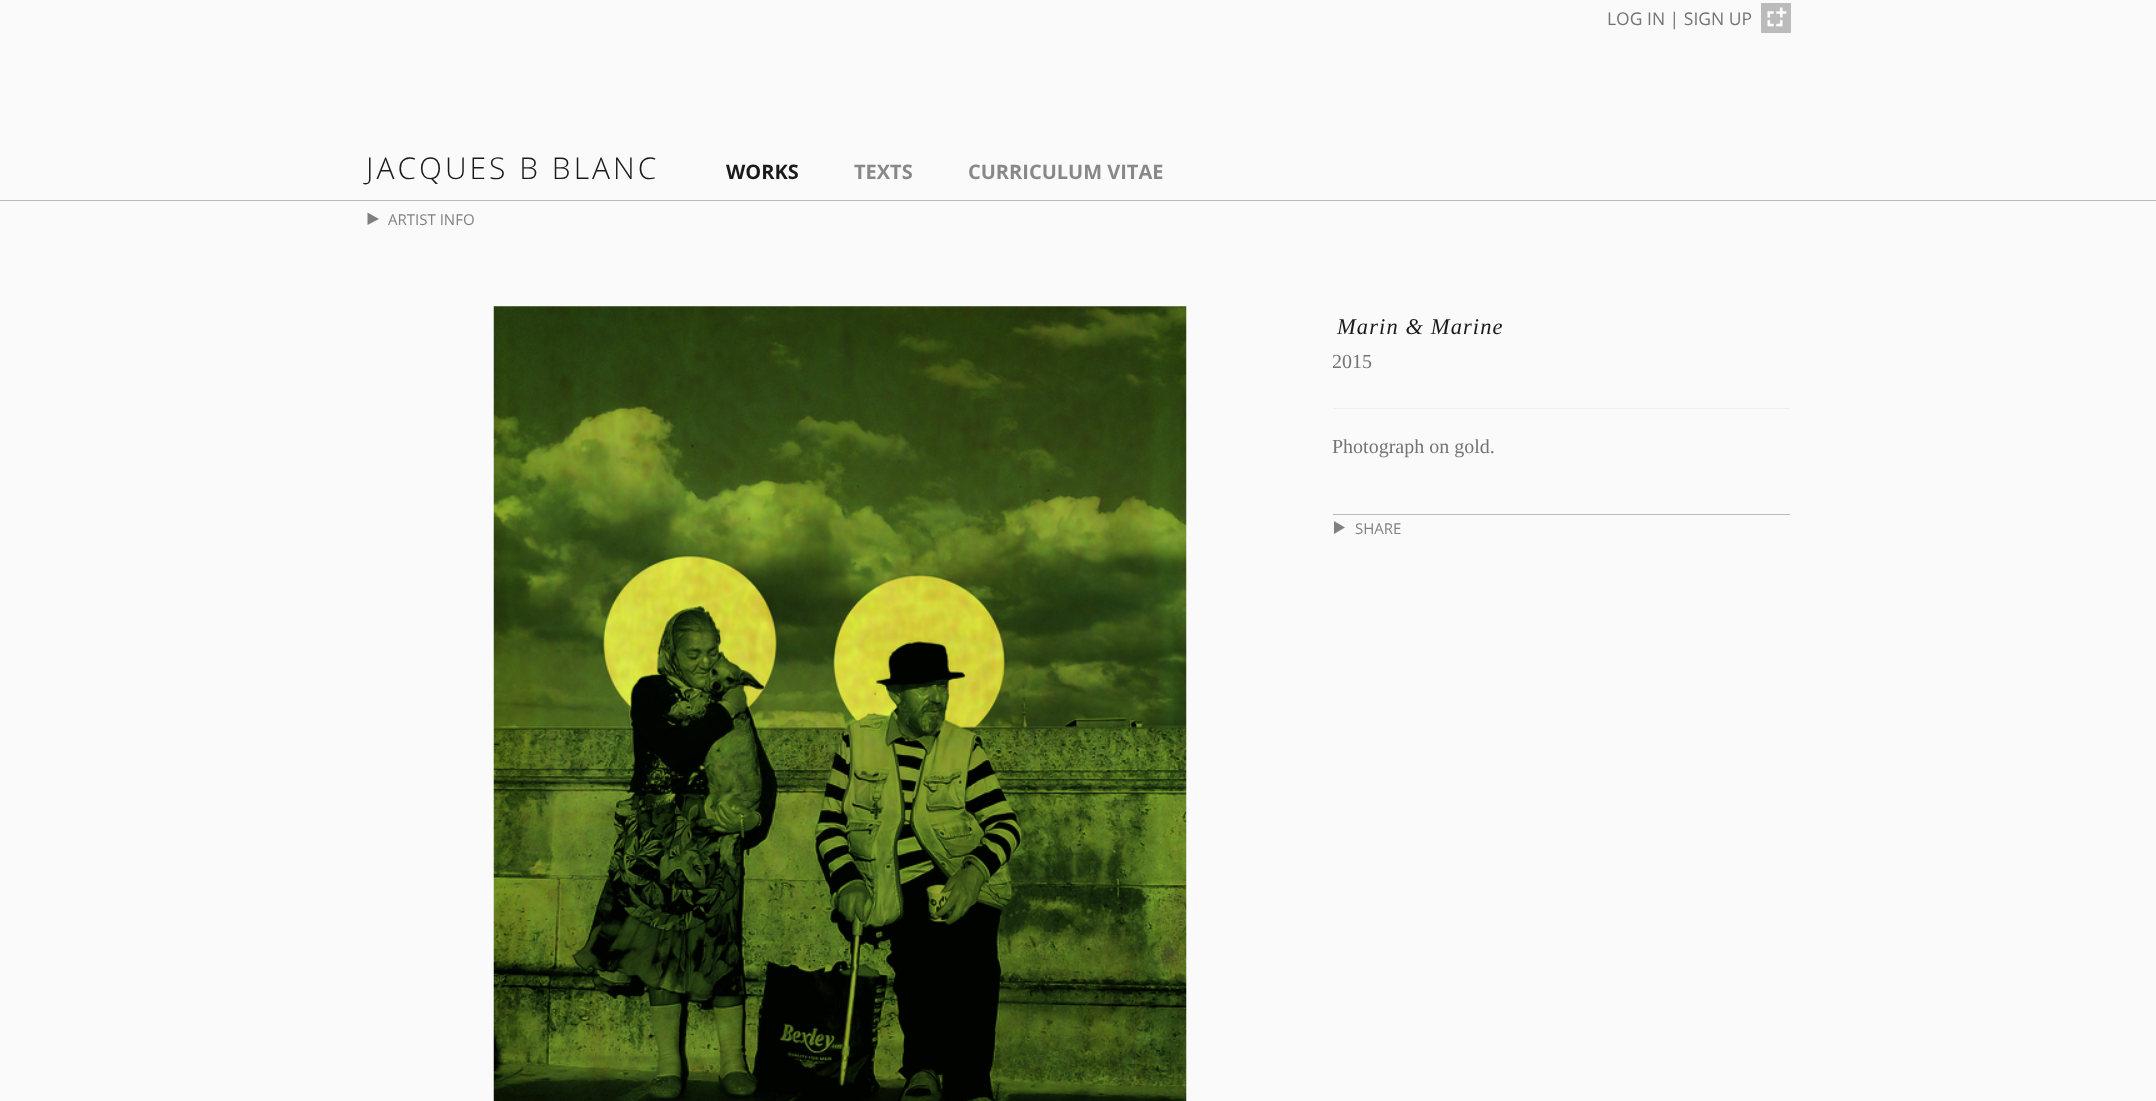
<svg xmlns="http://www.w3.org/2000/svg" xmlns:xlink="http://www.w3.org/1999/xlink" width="2156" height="1101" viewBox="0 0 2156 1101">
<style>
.cls-1{font:17.5px Open Sans;fill:#747474}
.cls-2{font:300 30px Open Sans;letter-spacing:3px;fill:#1a1a1a}
.cls-3{font:bold 20px Open Sans;fill:#1a1a1a}
.cls-4{font:bold 20px Open Sans;fill:#888888}
.cls-5{font:15px Open Sans;fill:#808080}
.cls-6{font:italic 22.5px Liberation Serif;letter-spacing:1.1px;fill:#1a1a1a}
.cls-7{font:20px Liberation Serif;fill:#747474}
</style>
<rect width="100%" height="100%" fill="#fafafa"/>
<rect fill="#bbbbbb" x="1761" y="3" width="30" height="30"/>
<image xlink:href="image0.png" x="1767" y="7" width="20" height="20"/>
<rect fill="#bbbbbb" x="0" y="200" width="2156" height="1"/>
<path fill="#808080" d="M367.5 225V212.5L379 219Z"/>
<image xlink:href="image1.png" x="493" y="306" width="694" height="795"/>
<rect fill="#eeeeee" x="1333" y="408" width="457" height="1"/>
<rect fill="#bbbbbb" x="1333" y="514" width="457" height="1"/>
<path fill="#808080" d="M1334 534V521L1345 527.5Z"/>
<text class="cls-1" x="1607" y="25">LOG IN | SIGN UP</text>
<text class="cls-2" x="366" y="179">JACQUES B BLANC</text>
<text class="cls-3" x="726" y="179">WORKS</text>
<text class="cls-4" x="854" y="179">TEXTS</text>
<text class="cls-4" x="968" y="179">CURRICULUM VITAE</text>
<text class="cls-5" x="388" y="225">ARTIST INFO</text>
<text class="cls-6" x="1337" y="334">Marin &amp; Marine</text>
<text class="cls-7" x="1332" y="368">2015</text>
<text class="cls-7" x="1332" y="453">Photograph on gold.</text>
<text class="cls-5" x="1355" y="534">SHARE</text>
</svg>
